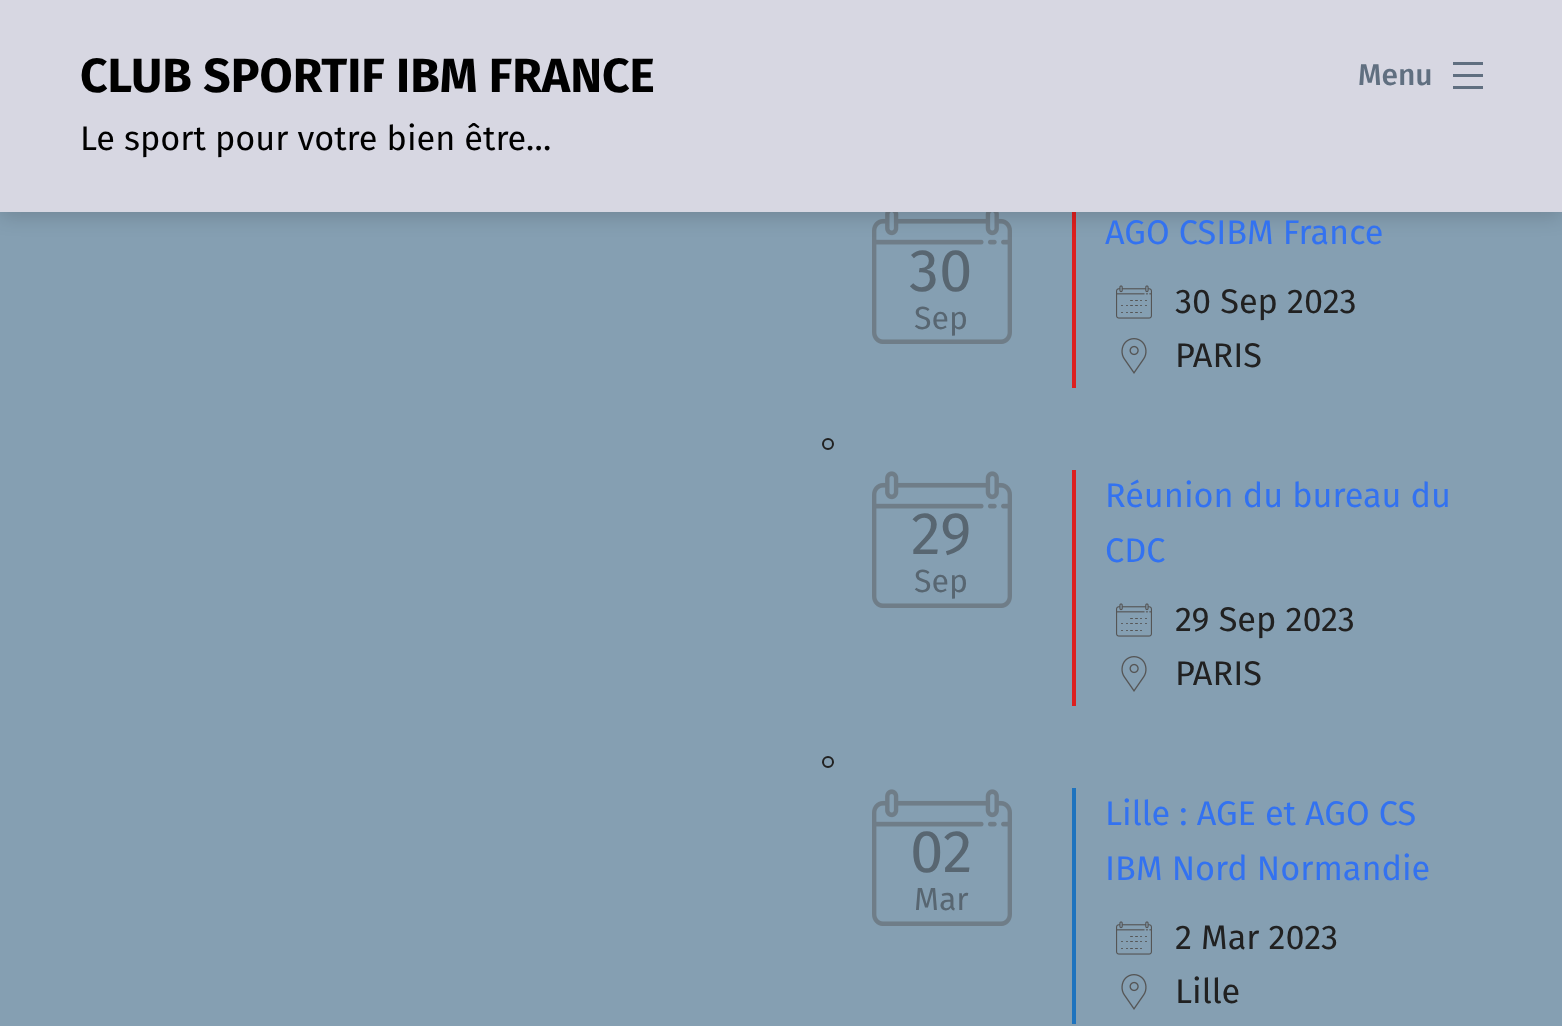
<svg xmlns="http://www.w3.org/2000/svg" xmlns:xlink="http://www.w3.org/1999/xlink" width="1562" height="1026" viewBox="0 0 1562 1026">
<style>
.cls-1{font:bold 48px Fira Sans;fill:#000000}
.cls-2{font:34.25px Fira Sans;fill:#000000}
.cls-3{font:500 30px Fira Sans;fill:#606f80}
.cls-4{font:60px Fira Sans;fill:#586671}
.cls-5{font:32px Fira Sans;fill:#586671}
.cls-6{font:34.25px Fira Sans;fill:#3372f0}
.cls-7{font:34.25px Fira Sans;fill:#212121}
</style>
<rect width="100%" height="100%" fill="#859fb2"/>
<image xlink:href="image1.png" x="872" y="212" width="140" height="132"/>
<rect fill="#dd1f1f" x="1072" y="206" width="4" height="182"/>
<rect fill="#000000" fill-opacity="0.16" filter="blur(10px)" x="0" y="4" width="1562" height="212"/>
<rect fill="#d7d7e2" x="0" y="0" width="1562" height="212"/>
<image xlink:href="image0.png" x="1453" y="62" width="30" height="27"/>
<image xlink:href="image2.png" x="1116" y="285" width="36" height="34"/>
<image xlink:href="image3.png" x="1121" y="338" width="26" height="36"/>
<circle fill="none" stroke="#212121" stroke-width="2" cx="828" cy="444" r="5"/>
<image xlink:href="image4.png" x="872" y="471" width="140" height="137"/>
<rect fill="#dd1f1f" x="1072" y="470" width="4" height="236"/>
<image xlink:href="image2.png" x="1116" y="603" width="36" height="34"/>
<image xlink:href="image3.png" x="1121" y="656" width="26" height="36"/>
<circle fill="none" stroke="#212121" stroke-width="2" cx="828" cy="762" r="5"/>
<image xlink:href="image4.png" x="872" y="789" width="140" height="137"/>
<rect fill="#1e73be" x="1072" y="788" width="4" height="236"/>
<image xlink:href="image2.png" x="1116" y="921" width="36" height="34"/>
<image xlink:href="image3.png" x="1121" y="974" width="26" height="36"/>
<text class="cls-1" x="80" y="92">CLUB SPORTIF IBM FRANCE</text>
<text class="cls-2" x="80" y="150">Le sport pour votre bien être…</text>
<text class="cls-3" x="1358" y="85">Menu</text>
<text class="cls-4" x="909" y="291">30</text>
<text class="cls-5" x="914" y="329">Sep</text>
<text class="cls-6" x="1105" y="244">AGO CSIBM France</text>
<text class="cls-7"><tspan x="1175" y="313">30 Sep 2023</tspan><tspan x="1175" y="367">PARIS</tspan></text>
<text class="cls-4" x="911" y="554">29</text>
<text class="cls-5" x="914" y="592">Sep</text>
<text class="cls-6"><tspan x="1105" y="507">Réunion du bureau du</tspan><tspan x="1105" y="562">CDC</tspan></text>
<text class="cls-7"><tspan x="1175" y="631">29 Sep 2023</tspan><tspan x="1175" y="685">PARIS</tspan></text>
<text class="cls-4" x="910" y="872">02</text>
<text class="cls-5" x="914" y="910">Mar</text>
<text class="cls-6"><tspan x="1105" y="825">Lille : AGE et AGO CS</tspan><tspan x="1105" y="880">IBM Nord Normandie</tspan></text>
<text class="cls-7"><tspan x="1175" y="949">2 Mar 2023</tspan><tspan x="1175" y="1003">Lille</tspan></text>
</svg>
